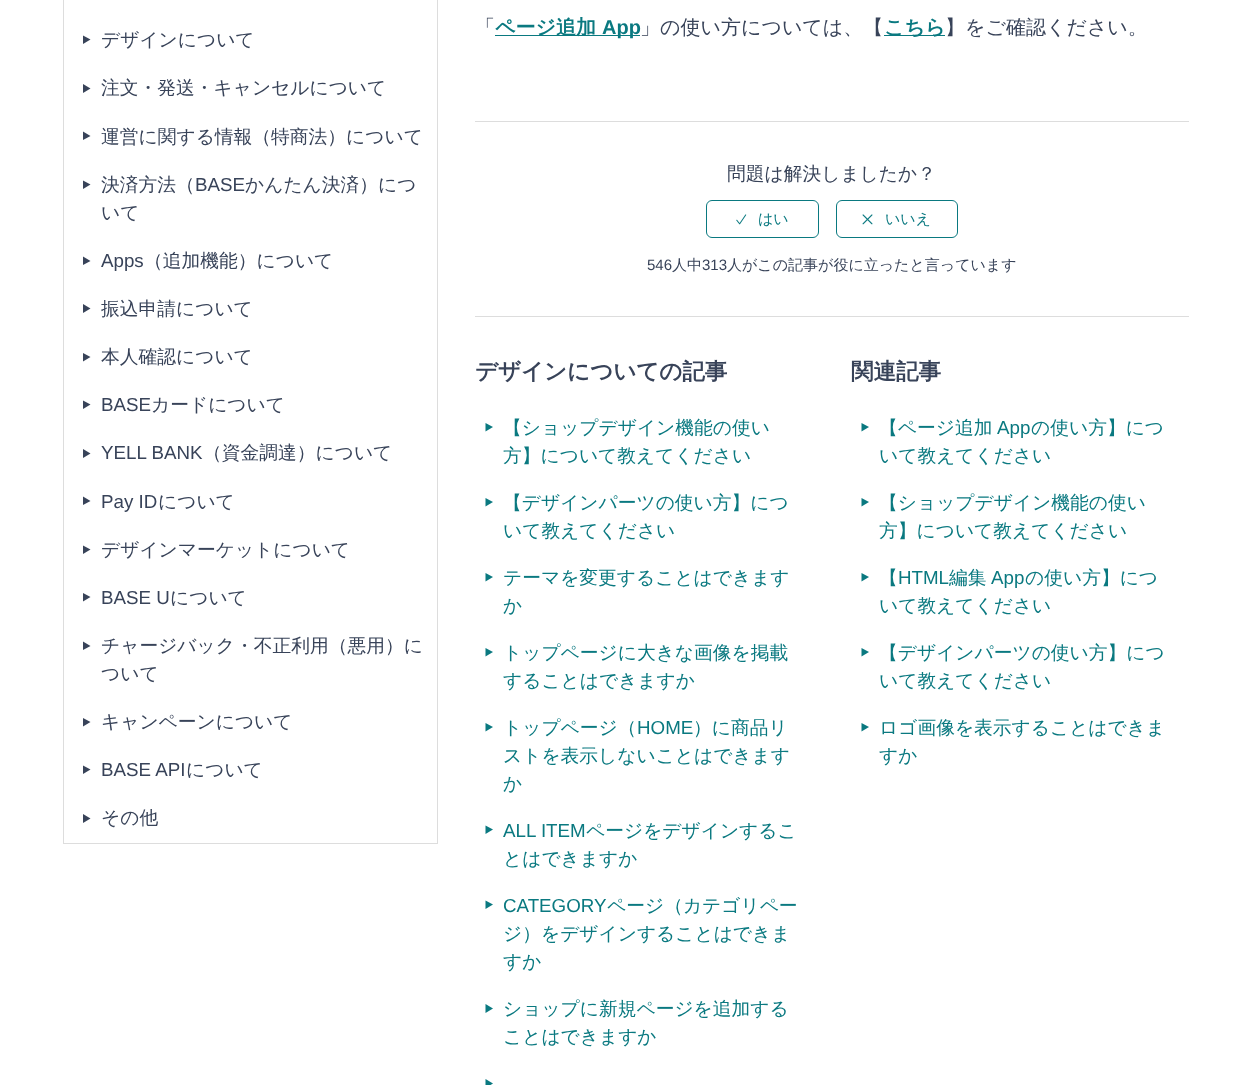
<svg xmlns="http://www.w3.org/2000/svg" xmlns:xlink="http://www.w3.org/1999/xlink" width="1251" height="1085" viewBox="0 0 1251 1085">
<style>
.cls-1{font:500 18.75px WenQuanYi Zen Hei;fill:#384359}
.cls-2{font:18.75px Liberation Sans;fill:#384359}
.cls-3{font:500 20px WenQuanYi Zen Hei;fill:#384359}
.cls-4{font:bold 20px WenQuanYi Zen Hei;fill:#0a7980}
.cls-5{font:bold 20px Liberation Sans;fill:#0a7980}
.cls-6{font:500 15px WenQuanYi Zen Hei;fill:#0a7980}
.cls-7{font:15px Liberation Sans;fill:#384359}
.cls-8{font:500 15px WenQuanYi Zen Hei;fill:#384359}
.cls-9{font:bold 22.5px WenQuanYi Zen Hei;fill:#384359}
.cls-10{font:500 18.75px WenQuanYi Zen Hei;fill:#0a7980}
.cls-11{font:18.75px Liberation Sans;fill:#0a7980}
</style>
<rect width="100%" height="100%" fill="#ffffff"/>
<rect fill="none" stroke="#dddddd" x="63.5" y="-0.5" width="374" height="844"/>
<path fill="#384359" d="M83 35.5L90.5 39.5L83 44Z"/>
<path fill="#384359" d="M83 84L90.5 88.5L83 93Z"/>
<path fill="#384359" d="M83 131.5L90.5 136L83 140Z"/>
<path fill="#384359" d="M83 180.5L90.5 184.5L83 189Z"/>
<path fill="#384359" d="M83 256.5L90.5 261L83 265Z"/>
<path fill="#384359" d="M83 304L90.5 308.5L83 313Z"/>
<path fill="#384359" d="M83 353L90.5 357L83 361.5Z"/>
<path fill="#384359" d="M83 400.5L90.5 404.5L83 409Z"/>
<path fill="#384359" d="M83 449L90.5 453.5L83 458Z"/>
<path fill="#384359" d="M83 496.5L90.5 501L83 505Z"/>
<path fill="#384359" d="M83 545.5L90.5 549.5L83 554Z"/>
<path fill="#384359" d="M83 593L90.5 597L83 601.5Z"/>
<path fill="#384359" d="M83 641.5L90.5 646L83 650Z"/>
<path fill="#384359" d="M83 718L90.5 722L83 726.5Z"/>
<path fill="#384359" d="M83 765.5L90.5 769.5L83 774Z"/>
<path fill="#384359" d="M83 814L90.5 818.5L83 823Z"/>
<rect fill="#0a7980" x="495" y="35" width="145" height="1"/>
<rect fill="#0a7980" x="884" y="35" width="61" height="1"/>
<rect fill="#dddddd" x="475" y="121" width="714" height="1"/>
<rect fill="none" stroke="#0a7980" x="706.5" y="200.5" width="112" height="37" rx="5.5"/>
<image xlink:href="image0.png" x="736" y="214" width="11" height="11"/>
<rect fill="none" stroke="#0a7980" x="836.5" y="200.5" width="121" height="37" rx="5.5"/>
<image xlink:href="image1.png" x="862" y="214" width="11" height="11"/>
<rect fill="#dddddd" x="475" y="316" width="714" height="1"/>
<path fill="#0a7980" d="M485.5 423L493 427L485.5 431.5Z"/>
<path fill="#0a7980" d="M485.5 498L493 502L485.5 506.5Z"/>
<path fill="#0a7980" d="M485.5 573L493 577L485.5 581.5Z"/>
<path fill="#0a7980" d="M485.5 648L493 652L485.5 656.5Z"/>
<path fill="#0a7980" d="M485.5 723L493 727L485.5 731.5Z"/>
<path fill="#0a7980" d="M485.5 825.5L493 829.5L485.5 834Z"/>
<path fill="#0a7980" d="M485.5 900.5L493 904.5L485.5 909Z"/>
<path fill="#0a7980" d="M485.5 1004L493 1008.5L485.5 1013Z"/>
<path fill="#0a7980" d="M485.5 1079L493 1083.5L485.5 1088Z"/>
<path fill="#0a7980" d="M861.5 423L869 427L861.5 431.5Z"/>
<path fill="#0a7980" d="M861.5 498L869 502L861.5 506.5Z"/>
<path fill="#0a7980" d="M861.5 573L869 577L861.5 581.5Z"/>
<path fill="#0a7980" d="M861.5 648L869 652L861.5 656.5Z"/>
<path fill="#0a7980" d="M861.5 723L869 727L861.5 731.5Z"/>
<text class="cls-1" x="101" y="46">デザインについて</text>
<text class="cls-1" x="101" y="94">注文・発送・キャンセルについて</text>
<text class="cls-1" x="101" y="143">運営に関する情報（特商法）について</text>
<text class="cls-1" x="101" y="191">決済方法（</text>
<text class="cls-2" x="195" y="191">BASE</text>
<text class="cls-1" x="245" y="191">かんたん決済）につ</text>
<text class="cls-1" x="101" y="219">いて</text>
<text class="cls-2" x="101" y="267">Apps</text>
<text class="cls-1" x="144" y="267">（追加機能）について</text>
<text class="cls-1" x="101" y="315">振込申請について</text>
<text class="cls-1" x="101" y="363">本人確認について</text>
<text class="cls-2" x="101" y="411">BASE</text>
<text class="cls-1" x="151" y="411">カードについて</text>
<text class="cls-2" x="101" y="459">YELL BANK</text>
<text class="cls-1" x="203" y="459">（資金調達）について</text>
<text class="cls-2" x="101" y="508">Pay ID</text>
<text class="cls-1" x="158" y="508">について</text>
<text class="cls-1" x="101" y="556">デザインマーケットについて</text>
<text class="cls-2" x="101" y="604">BASE U</text>
<text class="cls-1" x="170" y="604">について</text>
<text class="cls-1"><tspan x="101" y="652">チャージバック・不正利用（悪用）に</tspan><tspan x="101" y="680">ついて</tspan></text>
<text class="cls-1" x="101" y="728">キャンペーンについて</text>
<text class="cls-2" x="101" y="776">BASE API</text>
<text class="cls-1" x="186" y="776">について</text>
<text class="cls-1" x="101" y="824">その他</text>
<text class="cls-3" x="475" y="34">「</text>
<text class="cls-4" x="495" y="34">ページ追加</text>
<text class="cls-5" x="602" y="34">App</text>
<text class="cls-3" x="640" y="34">」の使い方については、【</text>
<text class="cls-4" x="884" y="34">こちら</text>
<text class="cls-3" x="945" y="34">】をご確認ください。</text>
<text class="cls-1" x="727" y="180">問題は解決しましたか？</text>
<text class="cls-6" x="758" y="224">はい</text>
<text class="cls-6" x="885" y="224">いいえ</text>
<text class="cls-7" x="647" y="270">546</text>
<text class="cls-8" x="672" y="270">人中</text>
<text class="cls-7" x="702" y="270">313</text>
<text class="cls-8" x="727" y="270">人がこの記事が役に立ったと言っています</text>
<text class="cls-9" x="475" y="379">デザインについての記事</text>
<text class="cls-10"><tspan x="503" y="434">【ショップデザイン機能の使い</tspan><tspan x="503" y="462">方】について教えてください</tspan></text>
<text class="cls-10"><tspan x="503" y="509">【デザインパーツの使い方】につ</tspan><tspan x="503" y="537">いて教えてください</tspan></text>
<text class="cls-10"><tspan x="503" y="584">テーマを変更することはできます</tspan><tspan x="503" y="612">か</tspan></text>
<text class="cls-10"><tspan x="503" y="659">トップページに大きな画像を掲載</tspan><tspan x="503" y="687">することはできますか</tspan></text>
<text class="cls-10" x="503" y="734">トップページ（</text>
<text class="cls-11" x="637" y="734">HOME</text>
<text class="cls-10" x="693" y="734">）に商品リ</text>
<text class="cls-10"><tspan x="503" y="762">ストを表示しないことはできます</tspan><tspan x="503" y="790">か</tspan></text>
<text class="cls-11" x="503" y="837">ALL ITEM</text>
<text class="cls-10" x="586" y="837">ページをデザインするこ</text>
<text class="cls-10" x="503" y="865">とはできますか</text>
<text class="cls-11" x="503" y="912">CATEGORY</text>
<text class="cls-10" x="607" y="912">ページ（カテゴリペー</text>
<text class="cls-10"><tspan x="503" y="940">ジ）をデザインすることはできま</tspan><tspan x="503" y="968">すか</tspan></text>
<text class="cls-10"><tspan x="503" y="1015">ショップに新規ページを追加する</tspan><tspan x="503" y="1043">ことはできますか</tspan></text>
<text class="cls-9" x="851" y="379">関連記事</text>
<text class="cls-10" x="879" y="434">【ページ追加</text>
<text class="cls-11" x="997" y="434">App</text>
<text class="cls-10" x="1031" y="434">の使い方】につ</text>
<text class="cls-10" x="879" y="462">いて教えてください</text>
<text class="cls-10"><tspan x="879" y="509">【ショップデザイン機能の使い</tspan><tspan x="879" y="537">方】について教えてください</tspan></text>
<text class="cls-10" x="879" y="584">【</text>
<text class="cls-11" x="898" y="584">HTML</text>
<text class="cls-10" x="949" y="584">編集</text>
<text class="cls-11" x="991" y="584">App</text>
<text class="cls-10" x="1025" y="584">の使い方】につ</text>
<text class="cls-10" x="879" y="612">いて教えてください</text>
<text class="cls-10"><tspan x="879" y="659">【デザインパーツの使い方】につ</tspan><tspan x="879" y="687">いて教えてください</tspan></text>
<text class="cls-10"><tspan x="879" y="734">ロゴ画像を表示することはできま</tspan><tspan x="879" y="762">すか</tspan></text>
</svg>
